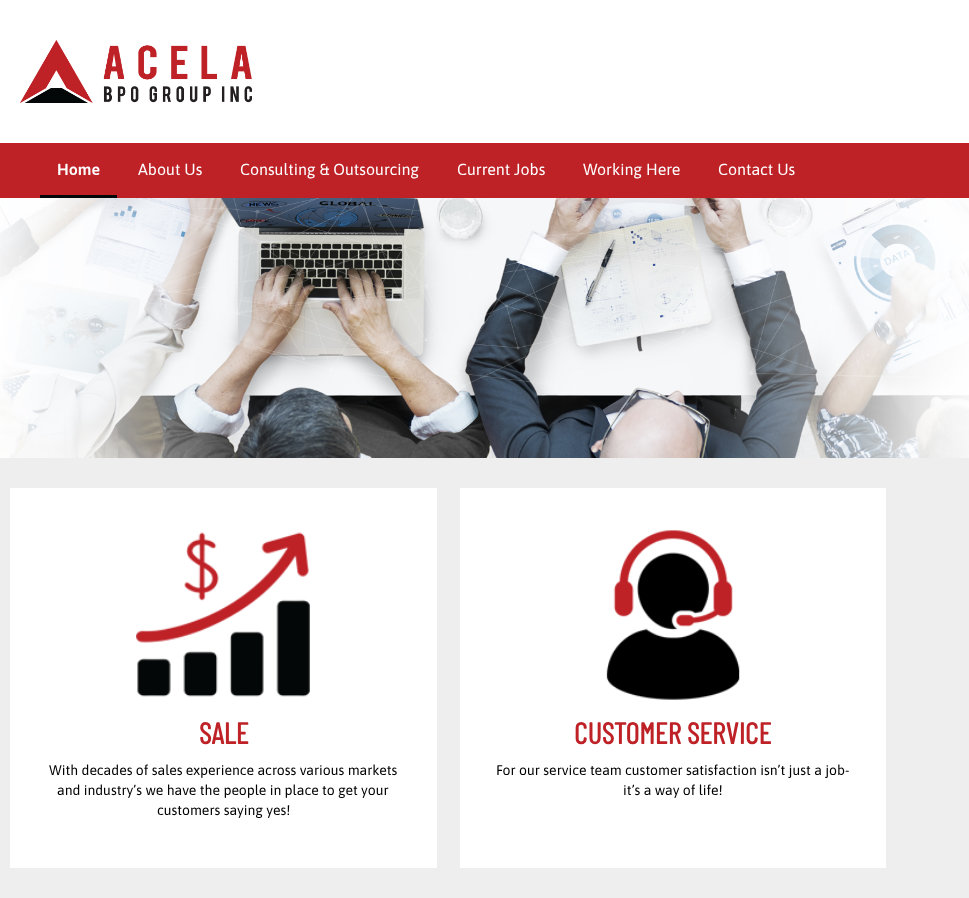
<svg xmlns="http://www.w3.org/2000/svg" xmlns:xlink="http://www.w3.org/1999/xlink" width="969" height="898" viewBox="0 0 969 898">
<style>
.cls-1{font:600 16px Asap;fill:#ffffff}
.cls-2{font:16px Asap;fill:#ffffff}
.cls-3{font:bold 30px Barlow Condensed;fill:#be2227}
.cls-4{font:14px Asap;fill:#000000}
</style>
<rect width="100%" height="100%" fill="#ffffff"/>
<image xlink:href="image0.png" x="20" y="40" width="232" height="63"/>
<rect fill="#be2227" x="0" y="143" width="969" height="55"/>
<rect fill="#040707" x="40" y="195" width="77" height="3"/>
<image xlink:href="image1.png" x="0" y="198" width="969" height="260"/>
<rect fill="#eeeeee" x="0" y="458" width="969" height="440"/>
<rect fill="#ffffff" x="10" y="488" width="427" height="380"/>
<image xlink:href="image2.png" x="136" y="532" width="174" height="165"/>
<rect fill="#ffffff" x="460" y="488" width="426" height="380"/>
<image xlink:href="image3.png" x="606" y="530" width="134" height="170"/>
<text class="cls-1" x="57" y="175">Home</text>
<text class="cls-2" x="138" y="175">About Us</text>
<text class="cls-2" x="240" y="175">Consulting &amp; Outsourcing</text>
<text class="cls-2" x="457" y="175">Current Jobs</text>
<text class="cls-2" x="583" y="175">Working Here</text>
<text class="cls-2" x="718" y="175">Contact Us</text>
<text class="cls-3" x="199" y="744">SALE</text>
<text class="cls-4" x="49" y="775">With decades of sales experience across various markets</text>
<text class="cls-4" x="57" y="795">and industry’s we have the people in place to get your</text>
<text class="cls-4" x="157" y="815">customers saying yes!</text>
<text class="cls-3" x="574" y="744">CUSTOMER SERVICE</text>
<text class="cls-4" x="496" y="775">For our service team customer satisfaction isn’t just a job-</text>
<text class="cls-4" x="623" y="795">it’s a way of life!</text>
</svg>
